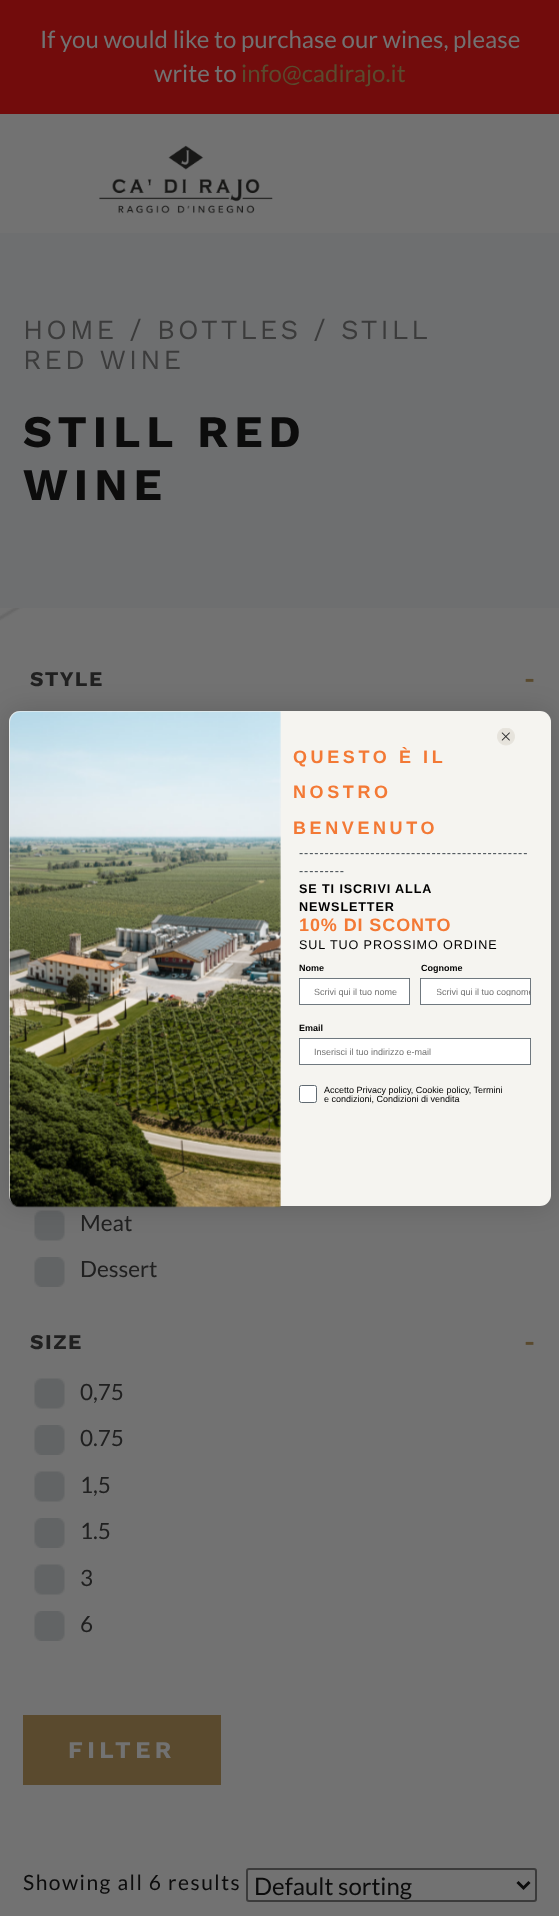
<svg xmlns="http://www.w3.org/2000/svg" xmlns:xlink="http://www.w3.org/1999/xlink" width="559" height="1916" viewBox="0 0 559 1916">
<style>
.cls-1{font:24px Lato;fill:#727272}
.cls-2{font:24px Lato;fill:#5a4a2e}
.cls-3{font:27.6px Work Sans;letter-spacing:3px;fill:#3b3b3b}
.cls-4{font:bold 45px Work Sans;letter-spacing:6px;fill:#0c0c0c}
.cls-5{font:bold 21px Work Sans;letter-spacing:1.5px;fill:#202020}
.cls-6{font:bold 21px Work Sans;letter-spacing:1.5px;fill:#5a4a2e}
.cls-7{font:22.5px Lato;fill:#202020}
.cls-8{font:bold 24px Work Sans;letter-spacing:4.5px;fill:#727272}
.cls-9{font:21px Lato;letter-spacing:1.5px;fill:#0c0c0c}
.cls-10{font:24px Lato;fill:#0c0c0c}
.cls-11{font:bold 18px Liberation Sans;letter-spacing:3.6px;fill:#f37935}
.cls-12{font:12.6px Liberation Sans;letter-spacing:0.9px;fill:#373f47}
.cls-13{font:bold 12.6px Liberation Sans;letter-spacing:0.9px;fill:#000000}
.cls-14{font:bold 18px Liberation Sans;letter-spacing:0.9px;fill:#f37935}
.cls-15{font:12.6px Liberation Sans;letter-spacing:0.9px;fill:#000000}
.cls-16{font:bold 9px Liberation Sans;fill:#000000}
.cls-17{font:9px Liberation Sans;fill:#727272}
.cls-18{font:9px Liberation Sans;fill:#000000}
</style>
<defs>
<clipPath id="clip1"><rect x="437" y="987" width="94" height="9"/></clipPath>
</defs>
<rect width="100%" height="100%" fill="#727272"/>
<image xlink:href="image0.png" x="0" y="608" width="23" height="13"/>
<rect fill="#720c0c" x="0" y="0" width="559" height="114"/>
<image xlink:href="image1.png" x="99" y="145" width="174" height="69"/>
<rect fill="#6e6f70" x="0" y="233" width="559" height="375"/>
<image xlink:href="image2.png" x="34" y="1210" width="31" height="31"/>
<image xlink:href="image3.png" x="34" y="1257" width="31" height="30"/>
<image xlink:href="image2.png" x="34" y="1378" width="31" height="31"/>
<image xlink:href="image3.png" x="34" y="1425" width="31" height="30"/>
<image xlink:href="image2.png" x="34" y="1471" width="31" height="31"/>
<image xlink:href="image3.png" x="34" y="1518" width="31" height="30"/>
<image xlink:href="image2.png" x="34" y="1564" width="31" height="31"/>
<image xlink:href="image3.png" x="34" y="1611" width="31" height="30"/>
<rect fill="#5a4a2e" x="23" y="1715" width="198" height="70"/>
<rect fill="none" stroke="#3b3b3b" stroke-width="2" x="247" y="1869" width="289" height="32" rx="2"/>
<path fill="none" stroke="#0c0c0c" stroke-width="3" d="M517.5 1882L523.5 1888L529.5 1882"/>
<rect fill="#000000" fill-opacity="0.15" filter="blur(13.5px)" x="9" y="711" width="542" height="495" rx="11"/>
<rect fill="#f5f4f0" x="9" y="711" width="542" height="495" rx="11"/>
<image xlink:href="image4.png" x="497" y="728" width="18" height="18"/>
<image xlink:href="image5.png" x="9" y="711" width="272" height="497"/>
<rect fill="#ffffff" stroke="#606a72" stroke-width="0.9" x="299.45" y="978.45" width="110.1" height="26.1"/>
<rect fill="#ffffff" stroke="#606a72" stroke-width="0.9" x="420.45" y="978.45" width="110.1" height="26.1"/>
<rect fill="#ffffff" stroke="#606a72" stroke-width="0.9" x="299.45" y="1038.45" width="231.1" height="26.1"/>
<rect fill="#ffffff" stroke="#606a72" x="299.5" y="1085.5" width="17" height="17" rx="2"/>
<text class="cls-1" x="40" y="48">If you would like to purchase our wines, please</text>
<text class="cls-1" x="154" y="82">write to</text>
<text class="cls-2" x="241" y="82">info@cadirajo.it</text>
<text class="cls-3"><tspan x="23" y="339">HOME / BOTTLES / STILL</tspan><tspan x="23" y="369">RED WINE</tspan></text>
<text class="cls-4"><tspan x="23" y="447">STILL RED</tspan><tspan x="23" y="500">WINE</tspan></text>
<text class="cls-5" x="30" y="686">STYLE</text>
<text class="cls-6" x="524" y="686">-</text>
<text class="cls-7" x="80" y="1231">Meat</text>
<text class="cls-7" x="80" y="1277">Dessert</text>
<text class="cls-5" x="30" y="1349">SIZE</text>
<text class="cls-6" x="524" y="1349">-</text>
<text class="cls-7" x="80" y="1400">0,75</text>
<text class="cls-7" x="80" y="1446">0.75</text>
<text class="cls-7" x="80" y="1493">1,5</text>
<text class="cls-7" x="80" y="1539">1.5</text>
<text class="cls-7" x="80" y="1586">3</text>
<text class="cls-7" x="80" y="1632">6</text>
<text class="cls-8" x="68" y="1758">FILTER</text>
<text class="cls-9" x="23" y="1890">Showing all 6 results</text>
<text class="cls-10" x="254" y="1895">Default sorting</text>
<text class="cls-11"><tspan x="293" y="763">QUESTO È IL</tspan><tspan x="293" y="798">NOSTRO</tspan></text>
<text class="cls-11" x="293" y="834">BENVENUTO</text>
<text class="cls-12"><tspan x="299" y="857">---------------------------------------------</tspan><tspan x="299" y="875">---------</tspan></text>
<text class="cls-13"><tspan x="299" y="893">SE TI ISCRIVI ALLA</tspan><tspan x="299" y="911">NEWSLETTER</tspan></text>
<text class="cls-14" x="299" y="931">10% DI SCONTO</text>
<text class="cls-15" x="299" y="949">SUL TUO PROSSIMO ORDINE</text>
<text class="cls-16" x="299" y="971">Nome</text>
<text class="cls-17" x="314" y="995">Scrivi qui il tuo nome</text>
<text class="cls-16" x="421" y="971">Cognome</text>
<g clip-path="url(#clip1)">
<text class="cls-17" x="436" y="995">Scrivi qui il tuo cognome</text>
</g>
<text class="cls-16" x="299" y="1031">Email</text>
<text class="cls-17" x="314" y="1055">Inserisci il tuo indirizzo e-mail</text>
<text class="cls-18"><tspan x="324" y="1093">Accetto Privacy policy, Cookie policy, Termini</tspan><tspan x="324" y="1102">e condizioni, Condizioni di vendita</tspan></text>
</svg>
